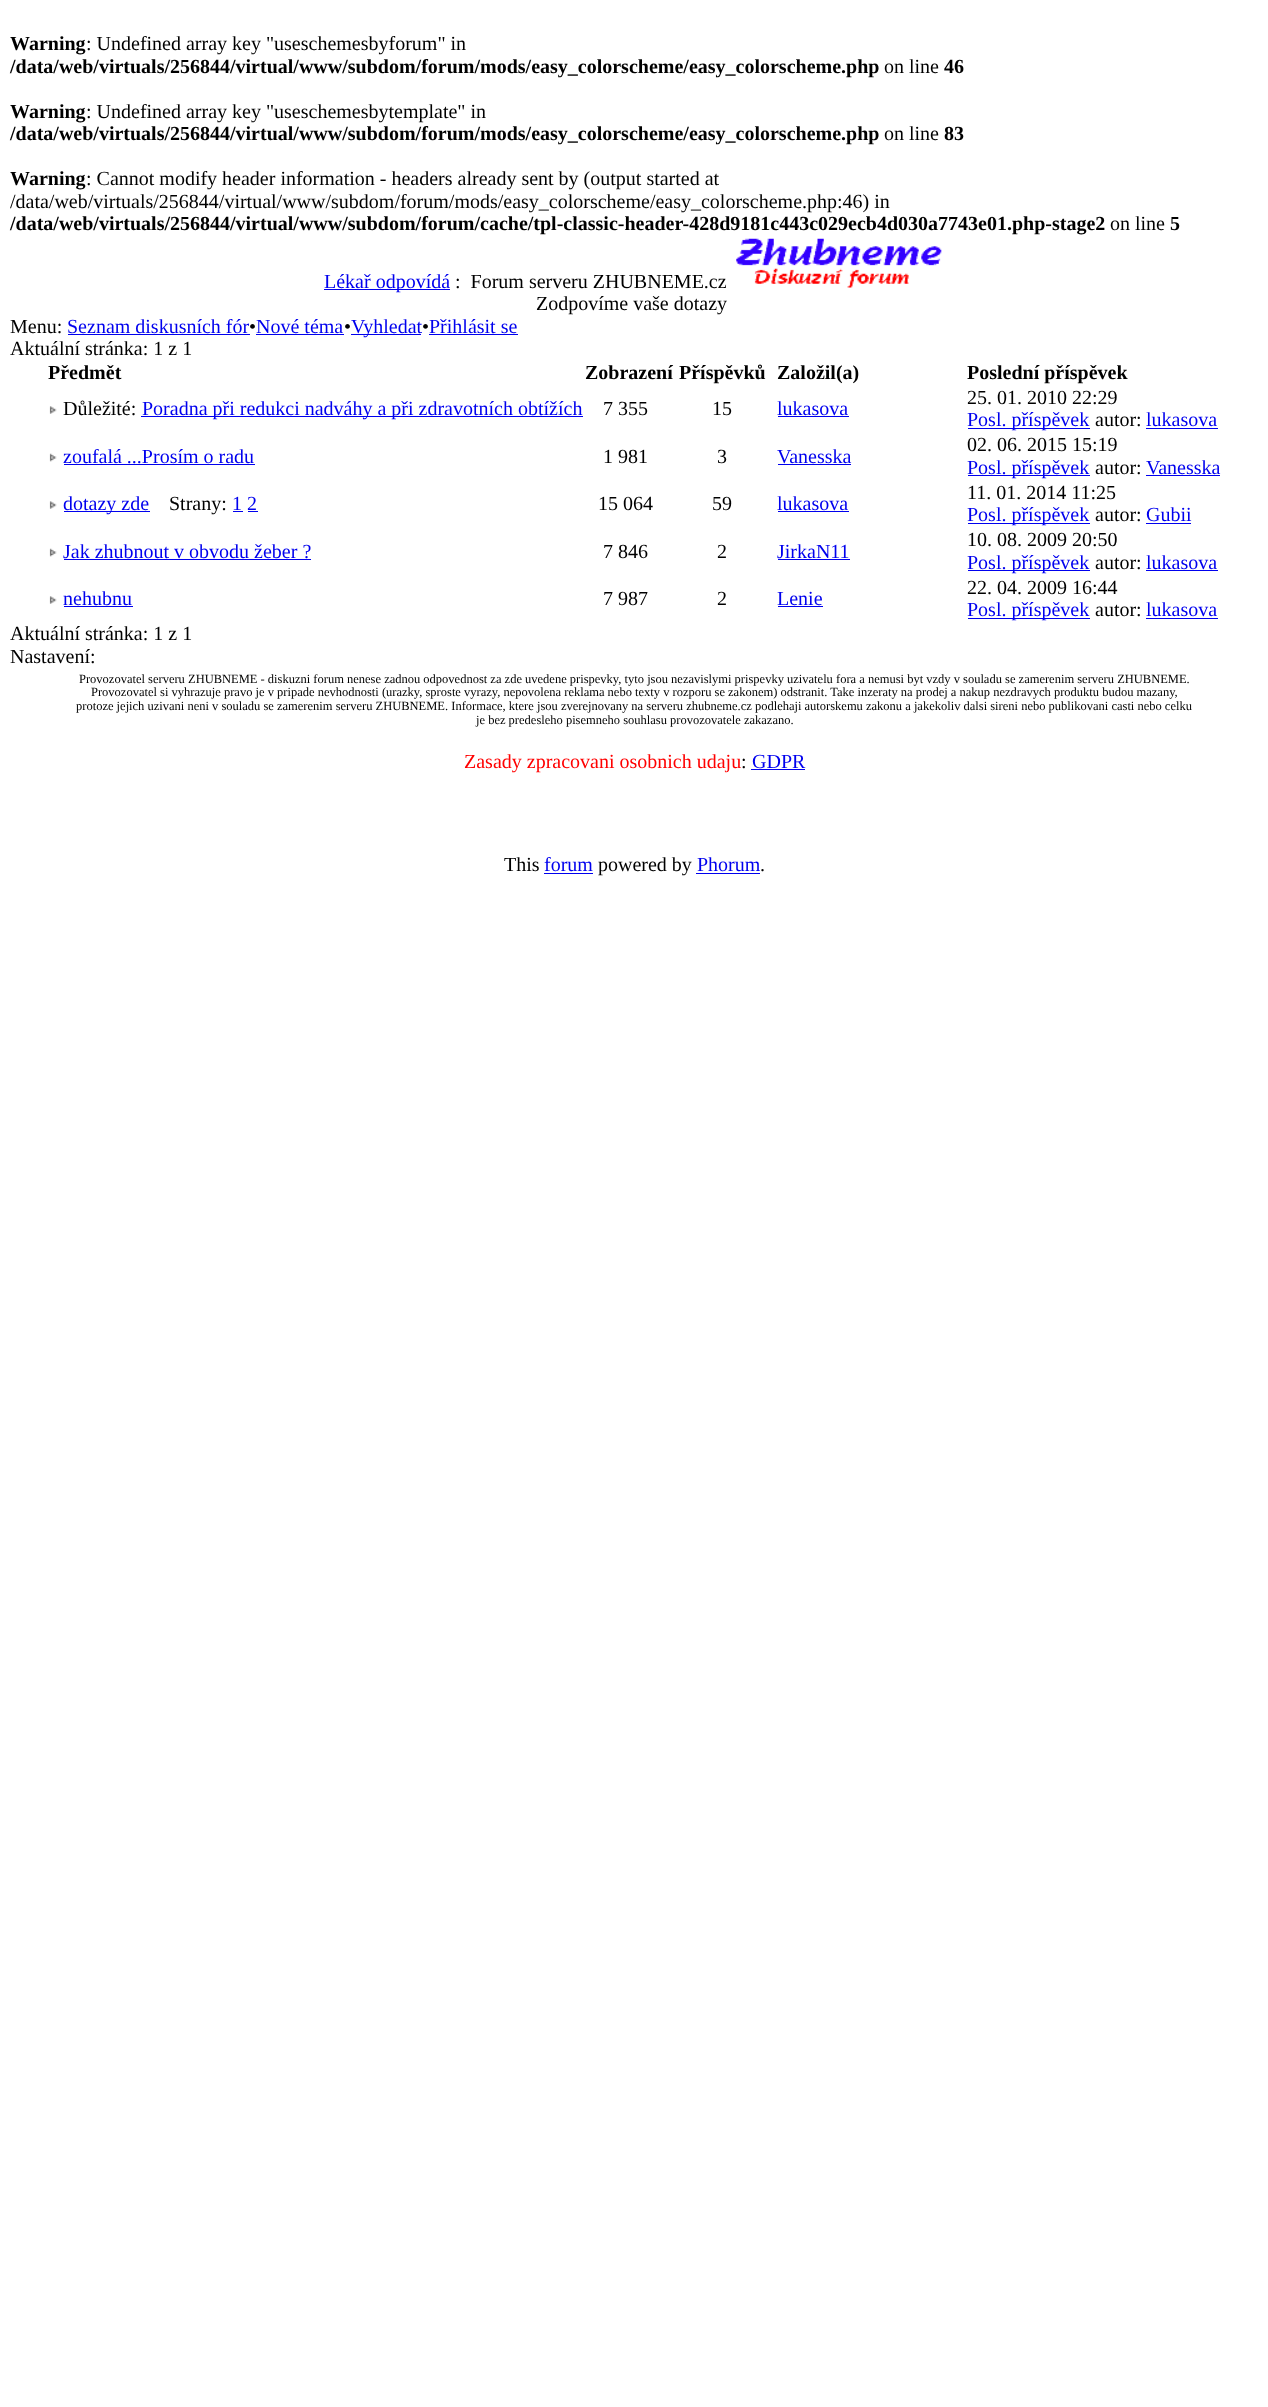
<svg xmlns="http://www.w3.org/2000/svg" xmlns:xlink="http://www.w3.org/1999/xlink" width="1268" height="2407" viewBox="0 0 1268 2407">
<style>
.cls-1{font:bold 20px Liberation Serif;fill:#000000}
.cls-2{font:20px Liberation Serif;fill:#000000}
.cls-3{font:20px Liberation Serif;fill:#0000ee}
.cls-4{font:12.5px Liberation Serif;fill:#000000}
.cls-5{font:20px Liberation Serif;fill:#ff0000}
</style>
<rect width="100%" height="100%" fill="#ffffff"/>
<rect fill="#0000ee" x="324" y="289" width="126" height="1"/>
<image xlink:href="image0.png" x="736" y="238" width="206" height="50"/>
<rect fill="#0000ee" x="68" y="334" width="182" height="1"/>
<rect fill="#0000ee" x="256" y="334" width="88" height="1"/>
<rect fill="#0000ee" x="351" y="334" width="70" height="1"/>
<rect fill="#0000ee" x="429" y="334" width="89" height="1"/>
<image xlink:href="image1.png" x="49" y="406" width="8" height="8"/>
<rect fill="#0000ee" x="141" y="416" width="442" height="1"/>
<rect fill="#0000ee" x="778" y="416" width="71" height="1"/>
<rect fill="#0000ee" x="968" y="428" width="122" height="1"/>
<rect fill="#0000ee" x="1146" y="428" width="72" height="1"/>
<image xlink:href="image2.png" x="49" y="453" width="8" height="9"/>
<rect fill="#0000ee" x="64" y="464" width="191" height="1"/>
<rect fill="#0000ee" x="778" y="464" width="73" height="1"/>
<rect fill="#0000ee" x="968" y="475" width="122" height="1"/>
<rect fill="#0000ee" x="1146" y="475" width="74" height="1"/>
<image xlink:href="image1.png" x="49" y="501" width="8" height="8"/>
<rect fill="#0000ee" x="64" y="511" width="86" height="1"/>
<rect fill="#0000ee" x="233" y="511" width="10" height="1"/>
<rect fill="#0000ee" x="248" y="511" width="10" height="1"/>
<rect fill="#0000ee" x="778" y="511" width="71" height="1"/>
<rect fill="#0000ee" x="968" y="523" width="122" height="1"/>
<rect fill="#0000ee" x="1146" y="523" width="45" height="1"/>
<image xlink:href="image2.png" x="49" y="548" width="8" height="9"/>
<rect fill="#0000ee" x="64" y="559" width="247" height="1"/>
<rect fill="#0000ee" x="778" y="559" width="72" height="1"/>
<rect fill="#0000ee" x="968" y="570" width="122" height="1"/>
<rect fill="#0000ee" x="1146" y="570" width="72" height="1"/>
<image xlink:href="image1.png" x="49" y="596" width="8" height="8"/>
<rect fill="#0000ee" x="64" y="606" width="69" height="1"/>
<rect fill="#0000ee" x="778" y="606" width="45" height="1"/>
<rect fill="#0000ee" x="968" y="618" width="122" height="1"/>
<rect fill="#0000ee" x="1146" y="618" width="72" height="1"/>
<rect fill="#0000ee" x="751" y="769" width="54" height="1"/>
<rect fill="#0000ee" x="544" y="873" width="49" height="1"/>
<rect fill="#0000ee" x="696" y="873" width="64" height="1"/>
<text class="cls-1" x="10" y="50">Warning</text>
<text class="cls-2" x="86" y="50">: Undefined array key "useschemesbyforum" in</text>
<text class="cls-1" x="10" y="73">/data/web/virtuals/256844/virtual/www/subdom/forum/mods/easy_colorscheme/easy_colorscheme.php</text>
<text class="cls-2" x="884" y="73">on line</text>
<text class="cls-1" x="944" y="73">46</text>
<text class="cls-1" x="10" y="118">Warning</text>
<text class="cls-2" x="86" y="118">: Undefined array key "useschemesbytemplate" in</text>
<text class="cls-1" x="10" y="140">/data/web/virtuals/256844/virtual/www/subdom/forum/mods/easy_colorscheme/easy_colorscheme.php</text>
<text class="cls-2" x="884" y="140">on line</text>
<text class="cls-1" x="944" y="140">83</text>
<text class="cls-1" x="10" y="185">Warning</text>
<text class="cls-2" x="86" y="185">: Cannot modify header information - headers already sent by (output started at</text>
<text class="cls-2" x="10" y="208">/data/web/virtuals/256844/virtual/www/subdom/forum/mods/easy_colorscheme/easy_colorscheme.php:46) in</text>
<text class="cls-1" x="10" y="230">/data/web/virtuals/256844/virtual/www/subdom/forum/cache/tpl-classic-header-428d9181c443c029ecb4d030a7743e01.php-stage2</text>
<text class="cls-2" x="1110" y="230">on line</text>
<text class="cls-1" x="1170" y="230">5</text>
<text class="cls-3" x="324" y="288">Lékař odpovídá</text>
<text class="cls-2" xml:space="preserve" x="455" y="288">:  Forum serveru ZHUBNEME.cz</text>
<text class="cls-2" x="536" y="310">Zodpovíme vaše dotazy</text>
<text class="cls-2" x="10" y="333">Menu:</text>
<text class="cls-3" x="67" y="333">Seznam diskusních fór</text>
<text class="cls-2" x="249" y="333">•</text>
<text class="cls-3" x="256" y="333">Nové téma</text>
<text class="cls-2" x="344" y="333">•</text>
<text class="cls-3" x="351" y="333">Vyhledat</text>
<text class="cls-2" x="422" y="333">•</text>
<text class="cls-3" x="429" y="333">Přihlásit se</text>
<text class="cls-2" x="10" y="355">Aktuální stránka: 1 z 1</text>
<text class="cls-1" x="48" y="379">Předmět</text>
<text class="cls-1" x="585" y="379">Zobrazení</text>
<text class="cls-1" x="679" y="379">Příspěvků</text>
<text class="cls-1" x="777" y="379">Založil(a)</text>
<text class="cls-1" x="967" y="379">Poslední příspěvek</text>
<text class="cls-2" x="63" y="415">Důležité:</text>
<text class="cls-3" x="142" y="415">Poradna při redukci nadváhy a při zdravotních obtížích</text>
<text class="cls-2" x="603" y="415">7 355</text>
<text class="cls-2" x="712" y="415">15</text>
<text class="cls-3" x="777" y="415">lukasova</text>
<text class="cls-2" x="967" y="404">25. 01. 2010 22:29</text>
<text class="cls-3" x="967" y="426">Posl. příspěvek</text>
<text class="cls-2" x="1095" y="426">autor:</text>
<text class="cls-3" x="1146" y="426">lukasova</text>
<text class="cls-3" x="63" y="463">zoufalá ...Prosím o radu</text>
<text class="cls-2" x="603" y="463">1 981</text>
<text class="cls-2" x="717" y="463">3</text>
<text class="cls-3" x="777" y="463">Vanesska</text>
<text class="cls-2" x="967" y="451">02. 06. 2015 15:19</text>
<text class="cls-3" x="967" y="474">Posl. příspěvek</text>
<text class="cls-2" x="1095" y="474">autor:</text>
<text class="cls-3" x="1146" y="474">Vanesska</text>
<text class="cls-3" x="63" y="510">dotazy zde</text>
<text class="cls-2" x="169" y="510">Strany:</text>
<text class="cls-3" x="232" y="510">1 2</text>
<text class="cls-2" x="598" y="510">15 064</text>
<text class="cls-2" x="712" y="510">59</text>
<text class="cls-3" x="777" y="510">lukasova</text>
<text class="cls-2" x="967" y="499">11. 01. 2014 11:25</text>
<text class="cls-3" x="967" y="521">Posl. příspěvek</text>
<text class="cls-2" x="1095" y="521">autor:</text>
<text class="cls-3" x="1146" y="521">Gubii</text>
<text class="cls-3" x="63" y="558">Jak zhubnout v obvodu žeber ?</text>
<text class="cls-2" x="603" y="558">7 846</text>
<text class="cls-2" x="717" y="558">2</text>
<text class="cls-3" x="777" y="558">JirkaN11</text>
<text class="cls-2" x="967" y="546">10. 08. 2009 20:50</text>
<text class="cls-3" x="967" y="569">Posl. příspěvek</text>
<text class="cls-2" x="1095" y="569">autor:</text>
<text class="cls-3" x="1146" y="569">lukasova</text>
<text class="cls-3" x="63" y="605">nehubnu</text>
<text class="cls-2" x="603" y="605">7 987</text>
<text class="cls-2" x="717" y="605">2</text>
<text class="cls-3" x="777" y="605">Lenie</text>
<text class="cls-2" x="967" y="594">22. 04. 2009 16:44</text>
<text class="cls-3" x="967" y="616">Posl. příspěvek</text>
<text class="cls-2" x="1095" y="616">autor:</text>
<text class="cls-3" x="1146" y="616">lukasova</text>
<text class="cls-2"><tspan x="10" y="640">Aktuální stránka: 1 z 1</tspan><tspan x="10" y="663">Nastavení:</tspan></text>
<text class="cls-4" x="79" y="683">Provozovatel serveru ZHUBNEME - diskuzni forum nenese zadnou odpovednost za zde uvedene prispevky, tyto jsou nezavislymi prispevky uzivatelu fora a nemusi byt vzdy v souladu se zamerenim serveru ZHUBNEME.</text>
<text class="cls-4" x="91" y="696">Provozovatel si vyhrazuje pravo je v pripade nevhodnosti (urazky, sproste vyrazy, nepovolena reklama nebo texty v rozporu se zakonem) odstranit. Take inzeraty na prodej a nakup nezdravych produktu budou mazany,</text>
<text class="cls-4" x="76" y="710">protoze jejich uzivani neni v souladu se zamerenim serveru ZHUBNEME. Informace, ktere jsou zverejnovany na serveru zhubneme.cz podlehaji autorskemu zakonu a jakekoliv dalsi sireni nebo publikovani casti nebo celku</text>
<text class="cls-4" x="476" y="724">je bez predesleho pisemneho souhlasu provozovatele zakazano.</text>
<text class="cls-5" x="464" y="768">Zasady zpracovani osobnich udaju</text>
<text class="cls-2" x="741" y="768">:</text>
<text class="cls-3" x="752" y="768">GDPR</text>
<text class="cls-2" x="504" y="871">This</text>
<text class="cls-3" x="544" y="871">forum</text>
<text class="cls-2" x="598" y="871">powered by</text>
<text class="cls-3" x="697" y="871">Phorum</text>
<text class="cls-2" x="760" y="871">.</text>
</svg>
